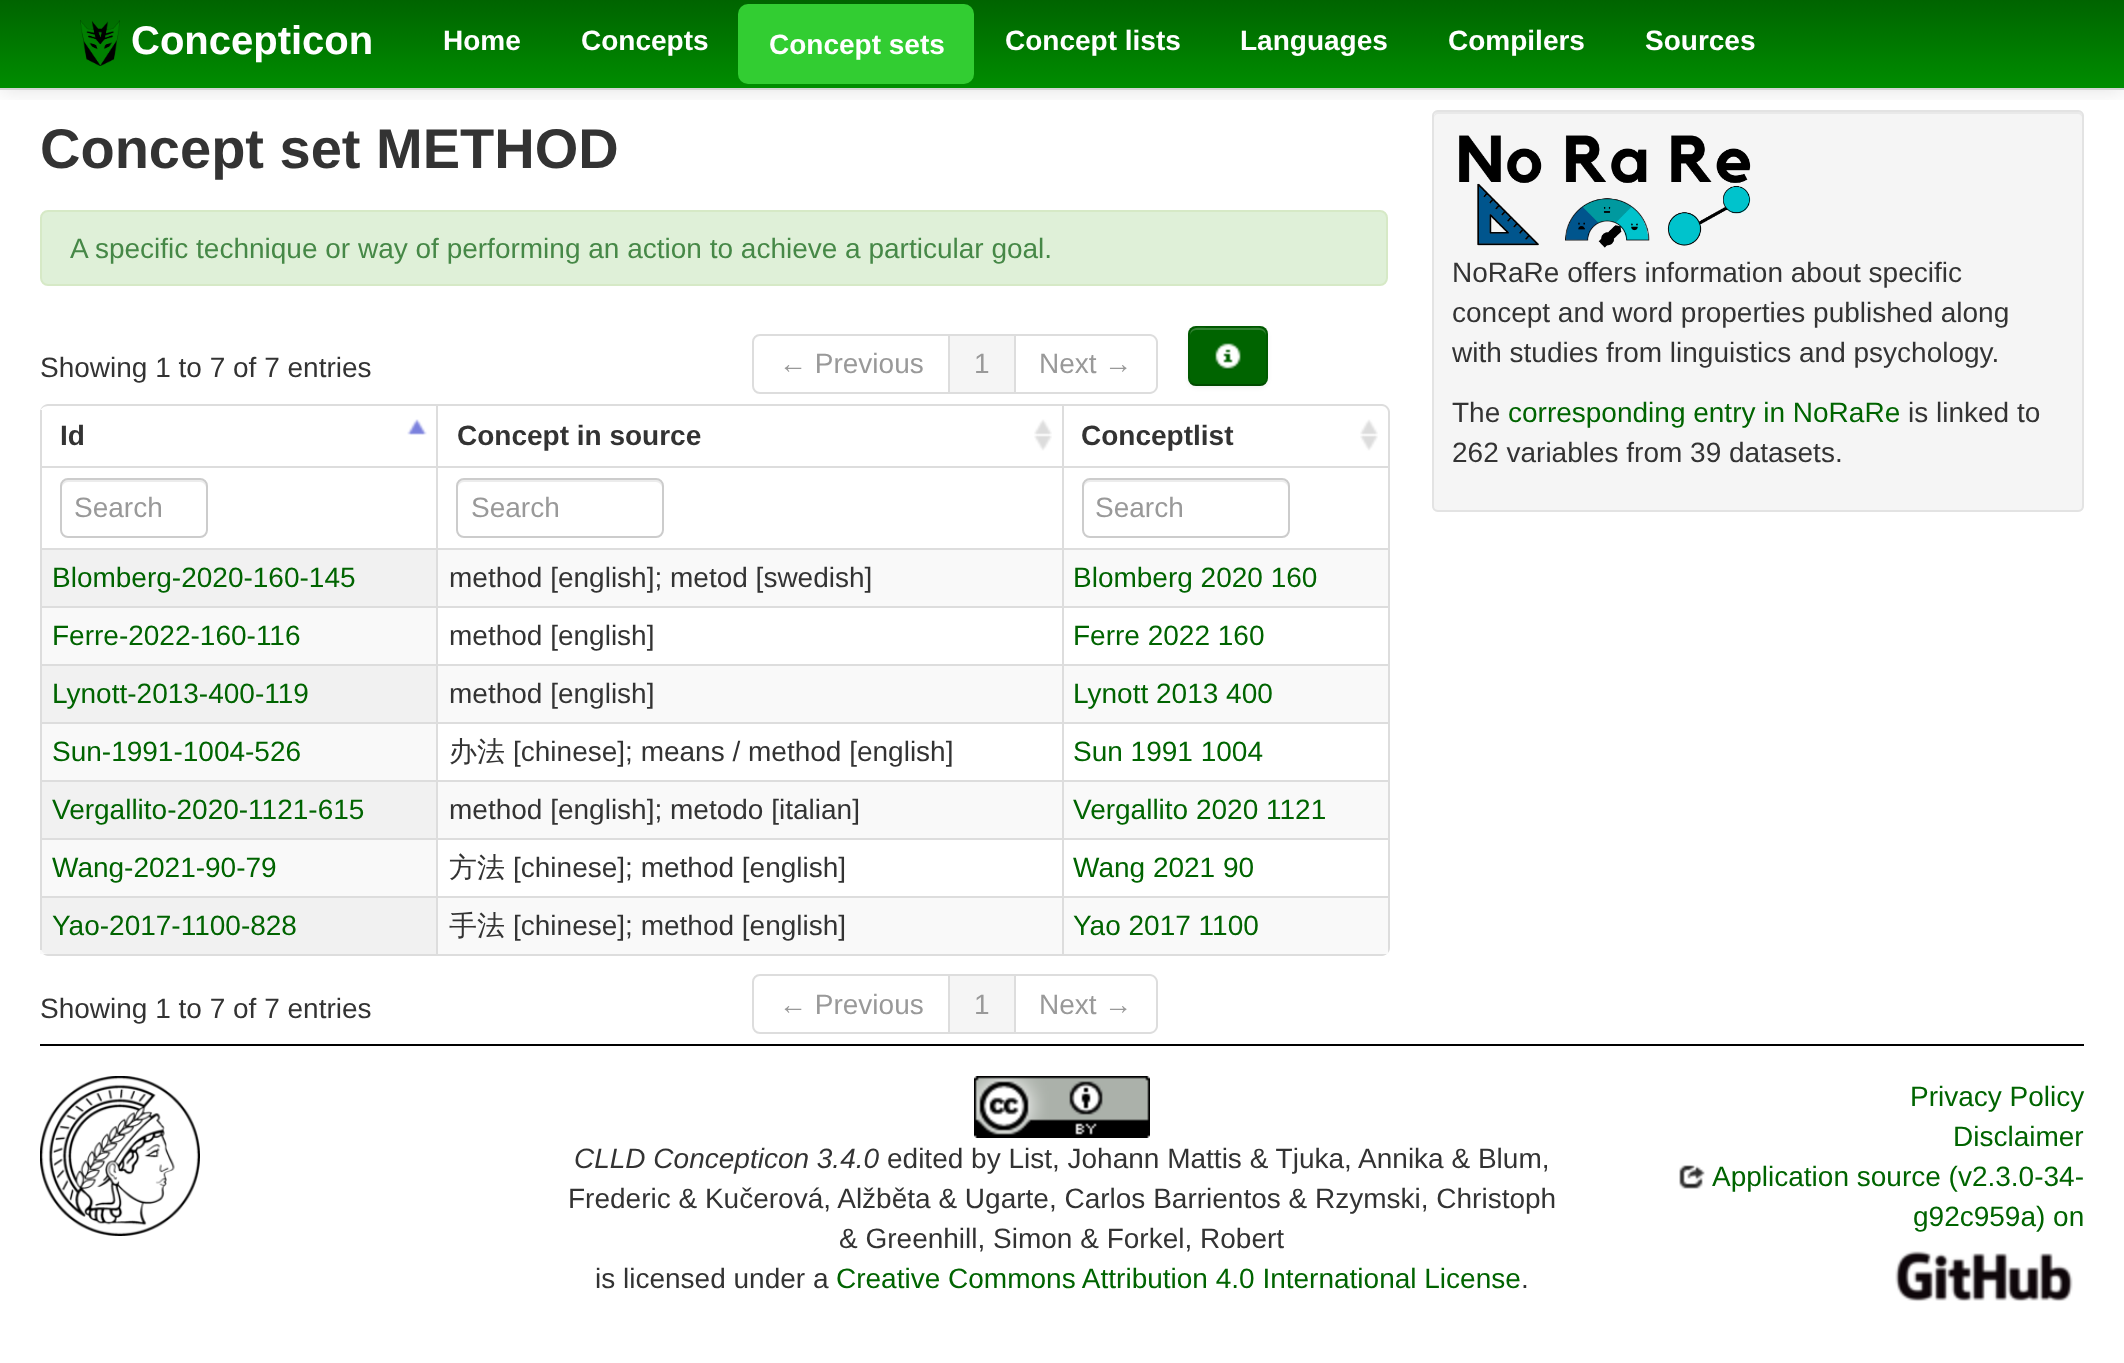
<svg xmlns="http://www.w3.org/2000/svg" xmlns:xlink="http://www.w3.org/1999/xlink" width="2124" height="1363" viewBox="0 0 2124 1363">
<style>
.cls-1{font:bold 40px Liberation Sans;fill:#ffffff}
.cls-2{font:bold 28px Liberation Sans;fill:#ffffff}
.cls-3{font:bold 56px Liberation Sans;fill:#333333}
.cls-4{font:28px Liberation Sans;fill:#468847}
.cls-5{font:28px Liberation Sans;fill:#333333}
.cls-6{font:28px Liberation Sans;fill:#999999}
.cls-7{font:bold 28px Liberation Sans;fill:#333333}
.cls-8{font:28px Liberation Sans;fill:#006400}
.cls-9{font:500 28px WenQuanYi Zen Hei;fill:#333333}
.cls-10{font:italic 28px Liberation Sans;fill:#333333}
</style>
<defs>
<linearGradient id="g1" gradientUnits="userSpaceOnUse" x1="1062" y1="0" x2="1062" y2="90"><stop offset="0" stop-color="#006400"/><stop offset="1" stop-color="#008e00"/></linearGradient>
<clipPath id="clip1"><rect x="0" y="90" width="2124" height="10"/></clipPath>
</defs>
<rect width="100%" height="100%" fill="#ffffff"/>
<rect fill="url(#g1)" x="0" y="0" width="2124" height="88"/>
<g clip-path="url(#clip1)">
<rect fill="#000000" fill-opacity="0.1" filter="blur(10px)" x="0" y="2" width="2124" height="90"/>
</g>
<rect fill="#d4d4d4" x="0" y="88" width="2124" height="2"/>
<image xlink:href="image0.png" x="80" y="20" width="40" height="46"/>
<rect fill="#32cd32" x="738" y="4" width="236" height="80" rx="10"/>
<rect fill="#dff0d8" stroke="#d6e9c6" stroke-width="2" x="41" y="211" width="1346" height="74" rx="7"/>
<path fill="none" stroke="#dddddd" stroke-width="2" d="M760 335H949V393H760C756 393 753 390 753 386V342C753 338 756 335 760 335Z"/>
<rect fill="#f5f5f5" x="950" y="336" width="64" height="56"/>
<rect fill="#dddddd" x="950" y="334" width="66" height="2"/>
<rect fill="#dddddd" x="1014" y="334" width="2" height="60"/>
<rect fill="#dddddd" x="950" y="392" width="66" height="2"/>
<path fill="#dddddd" fill-rule="evenodd" d="M1016 334H1150C1154 334 1158 338 1158 342V386C1158 390 1154 394 1150 394H1016ZM1016 336H1150C1153 336 1156 339 1156 342V386C1156 389 1153 392 1150 392H1016Z"/>
<rect fill="#000000" fill-opacity="0.05" filter="blur(2px)" x="1188" y="328" width="80" height="60" rx="8"/>
<rect fill="#006400" x="1188" y="326" width="80" height="60" rx="8"/>
<path fill="#338333" d="M1196 330H1260C1263 330 1266 333 1266 336C1266 326 1258 328 1249 328H1207C1198 328 1190 326 1190 336C1190 333 1193 330 1196 330Z"/>
<path fill="none" stroke="#000000" stroke-opacity="0.25" stroke-width="2" d="M1265 383C1263.5 384.5 1262 385 1260 385H1196C1194 385 1192.5 384.5 1191 383"/>
<path fill="none" stroke="#000000" stroke-opacity="0.1" stroke-width="2" d="M1191 383C1189.5 381.5 1189 380 1189 378V334C1189 332 1189.5 330.5 1191 329C1192.5 327.5 1194 327 1196 327H1260C1262 327 1263.5 327.5 1265 329C1266.5 330.5 1267 332 1267 334V378C1267 380 1266.5 381.5 1265 383"/>
<image xlink:href="image1.png" x="1215" y="343" width="26" height="27"/>
<path fill="#dddddd" fill-rule="evenodd" d="M48 404H1382C1386 404 1390 408 1390 412V948C1390 952 1386 956 1382 956H48C44 956 40 952 40 948V412C40 408 44 404 48 404ZM48 406H1382C1385 406 1388 409 1388 412V948C1388 951 1385 954 1382 954H48C44 954 40 951 40 948V412C40 409 44 406 48 406Z"/>
<image xlink:href="image2.png" x="407" y="419" width="20" height="16"/>
<rect fill="#dddddd" x="40" y="410" width="2" height="56"/>
<image xlink:href="image3.png" x="1034" y="419" width="18" height="32"/>
<rect fill="#dddddd" x="436" y="406" width="2" height="60"/>
<image xlink:href="image3.png" x="1360" y="419" width="18" height="32"/>
<rect fill="#dddddd" x="1062" y="406" width="2" height="60"/>
<rect fill="#dddddd" x="40" y="466" width="1348" height="2"/>
<rect fill="#dddddd" x="40" y="466" width="2" height="82"/>
<path fill="#ececec" d="M68 482H200C203 482 206 485 206 488V486C206 483 203 480 200 480H68C65 480 62 483 62 486V488C62 485 65 482 68 482Z"/>
<rect fill="none" stroke="#cccccc" stroke-width="2" x="61" y="479" width="146" height="58" rx="7"/>
<rect fill="#dddddd" x="436" y="466" width="2" height="82"/>
<path fill="#ececec" d="M464 482H656C659 482 662 485 662 488V486C662 483 659 480 656 480H464C461 480 458 483 458 486V488C458 485 461 482 464 482Z"/>
<rect fill="none" stroke="#cccccc" stroke-width="2" x="457" y="479" width="206" height="58" rx="7"/>
<rect fill="#dddddd" x="1062" y="466" width="2" height="82"/>
<path fill="#ececec" d="M1090 482H1282C1285 482 1288 485 1288 488V486C1288 483 1285 480 1282 480H1090C1087 480 1084 483 1084 486V488C1084 485 1087 482 1090 482Z"/>
<rect fill="none" stroke="#cccccc" stroke-width="2" x="1083" y="479" width="206" height="58" rx="7"/>
<rect fill="#f9f9f9" x="438" y="550" width="950" height="56"/>
<rect fill="#f1f1f1" x="42" y="550" width="394" height="56"/>
<rect fill="#dddddd" x="40" y="548" width="1348" height="2"/>
<rect fill="#dddddd" x="40" y="548" width="2" height="58"/>
<rect fill="#dddddd" x="436" y="548" width="2" height="58"/>
<rect fill="#dddddd" x="1062" y="548" width="2" height="58"/>
<rect fill="#f9f9f9" x="42" y="608" width="394" height="56"/>
<rect fill="#dddddd" x="40" y="606" width="1348" height="2"/>
<rect fill="#dddddd" x="40" y="606" width="2" height="58"/>
<rect fill="#dddddd" x="436" y="606" width="2" height="58"/>
<rect fill="#dddddd" x="1062" y="606" width="2" height="58"/>
<rect fill="#f9f9f9" x="438" y="666" width="950" height="56"/>
<rect fill="#f1f1f1" x="42" y="666" width="394" height="56"/>
<rect fill="#dddddd" x="40" y="664" width="1348" height="2"/>
<rect fill="#dddddd" x="40" y="664" width="2" height="58"/>
<rect fill="#dddddd" x="436" y="664" width="2" height="58"/>
<rect fill="#dddddd" x="1062" y="664" width="2" height="58"/>
<rect fill="#f9f9f9" x="42" y="724" width="394" height="56"/>
<rect fill="#dddddd" x="40" y="722" width="1348" height="2"/>
<rect fill="#dddddd" x="40" y="722" width="2" height="58"/>
<rect fill="#dddddd" x="436" y="722" width="2" height="58"/>
<rect fill="#dddddd" x="1062" y="722" width="2" height="58"/>
<rect fill="#f9f9f9" x="438" y="782" width="950" height="56"/>
<rect fill="#f1f1f1" x="42" y="782" width="394" height="56"/>
<rect fill="#dddddd" x="40" y="780" width="1348" height="2"/>
<rect fill="#dddddd" x="40" y="780" width="2" height="58"/>
<rect fill="#dddddd" x="436" y="780" width="2" height="58"/>
<rect fill="#dddddd" x="1062" y="780" width="2" height="58"/>
<rect fill="#f9f9f9" x="42" y="840" width="394" height="56"/>
<rect fill="#dddddd" x="40" y="838" width="1348" height="2"/>
<rect fill="#dddddd" x="40" y="838" width="2" height="58"/>
<rect fill="#dddddd" x="436" y="838" width="2" height="58"/>
<rect fill="#dddddd" x="1062" y="838" width="2" height="58"/>
<rect fill="#f9f9f9" x="40" y="898" width="1348" height="56"/>
<path fill="#f1f1f1" d="M40 896H436V954H48C43.5 954 40 950.5 40 946Z"/>
<rect fill="#dddddd" x="40" y="896" width="1348" height="2"/>
<rect fill="#dddddd" x="40" y="896" width="2" height="54"/>
<rect fill="#dddddd" x="436" y="896" width="2" height="58"/>
<rect fill="#dddddd" x="1062" y="896" width="2" height="58"/>
<path fill="none" stroke="#dddddd" stroke-width="2" d="M760 975H949V1033H760C756 1033 753 1030 753 1026V982C753 978 756 975 760 975Z"/>
<rect fill="#f5f5f5" x="950" y="976" width="64" height="56"/>
<rect fill="#dddddd" x="950" y="974" width="66" height="2"/>
<rect fill="#dddddd" x="1014" y="974" width="2" height="60"/>
<rect fill="#dddddd" x="950" y="1032" width="66" height="2"/>
<path fill="#dddddd" fill-rule="evenodd" d="M1016 974H1150C1154 974 1158 978 1158 982V1026C1158 1030 1154 1034 1150 1034H1016ZM1016 976H1150C1153 976 1156 979 1156 982V1026C1156 1029 1153 1032 1150 1032H1016Z"/>
<rect fill="#f5f5f5" x="1432" y="110" width="652" height="402" rx="6"/>
<path fill="#e9e9e9" d="M1438 114H2078C2080 114 2082 116 2082 118C2082 115 2082 112 2078 112H1436L1435 114C1434 115 1434 117 1434 118C1434 116 1436 114 1438 114Z"/>
<rect fill="none" stroke="#e3e3e3" stroke-width="2" x="1433" y="111" width="650" height="400" rx="5"/>
<image xlink:href="image4.png" x="1459" y="135" width="292" height="113"/>
<rect fill="#000000" x="40" y="1044" width="2044" height="2"/>
<image xlink:href="image5.png" x="40" y="1076" width="160" height="160"/>
<image xlink:href="image6.png" x="974" y="1076" width="176" height="62"/>
<image xlink:href="image7.png" x="1679" y="1165" width="26" height="24"/>
<image xlink:href="image8.png" x="1895" y="1251" width="178" height="51"/>
<text class="cls-1" x="131" y="54">Concepticon</text>
<text class="cls-2" x="443" y="50">Home</text>
<text class="cls-2" x="581" y="50">Concepts</text>
<text class="cls-2" x="769" y="54">Concept sets</text>
<text class="cls-2" x="1005" y="50">Concept lists</text>
<text class="cls-2" x="1240" y="50">Languages</text>
<text class="cls-2" x="1448" y="50">Compilers</text>
<text class="cls-2" x="1645" y="50">Sources</text>
<text class="cls-3" x="40" y="168">Concept set METHOD</text>
<text class="cls-4" x="70" y="258">A specific technique or way of performing an action to achieve a particular goal.</text>
<text class="cls-5" x="40" y="377">Showing 1 to 7 of 7 entries</text>
<text class="cls-6" x="779" y="373">← Previous</text>
<text class="cls-6" x="974" y="373">1</text>
<text class="cls-6" x="1039" y="373">Next →</text>
<text class="cls-7" x="60" y="445">Id</text>
<text class="cls-7" x="457" y="445">Concept in source</text>
<text class="cls-7" x="1081" y="445">Conceptlist</text>
<text class="cls-6" x="74" y="517">Search</text>
<text class="cls-6" x="471" y="517">Search</text>
<text class="cls-6" x="1095" y="517">Search</text>
<text class="cls-8" x="52" y="587">Blomberg-2020-160-145</text>
<text class="cls-5" x="449" y="587">method [english]; metod [swedish]</text>
<text class="cls-8" x="1073" y="587">Blomberg 2020 160</text>
<text class="cls-8" x="52" y="645">Ferre-2022-160-116</text>
<text class="cls-5" x="449" y="645">method [english]</text>
<text class="cls-8" x="1073" y="645">Ferre 2022 160</text>
<text class="cls-8" x="52" y="703">Lynott-2013-400-119</text>
<text class="cls-5" x="449" y="703">method [english]</text>
<text class="cls-8" x="1073" y="703">Lynott 2013 400</text>
<text class="cls-8" x="52" y="761">Sun-1991-1004-526</text>
<text class="cls-9" x="449" y="761">办法</text>
<text class="cls-5" x="513" y="761">[chinese]; means / method [english]</text>
<text class="cls-8" x="1073" y="761">Sun 1991 1004</text>
<text class="cls-8" x="52" y="819">Vergallito-2020-1121-615</text>
<text class="cls-5" x="449" y="819">method [english]; metodo [italian]</text>
<text class="cls-8" x="1073" y="819">Vergallito 2020 1121</text>
<text class="cls-8" x="52" y="877">Wang-2021-90-79</text>
<text class="cls-9" x="449" y="877">方法</text>
<text class="cls-5" x="513" y="877">[chinese]; method [english]</text>
<text class="cls-8" x="1073" y="877">Wang 2021 90</text>
<text class="cls-8" x="52" y="935">Yao-2017-1100-828</text>
<text class="cls-9" x="449" y="935">手法</text>
<text class="cls-5" x="513" y="935">[chinese]; method [english]</text>
<text class="cls-8" x="1073" y="935">Yao 2017 1100</text>
<text class="cls-5" x="40" y="1018">Showing 1 to 7 of 7 entries</text>
<text class="cls-6" x="779" y="1014">← Previous</text>
<text class="cls-6" x="974" y="1014">1</text>
<text class="cls-6" x="1039" y="1014">Next →</text>
<text class="cls-5"><tspan x="1452" y="282">NoRaRe offers information about specific</tspan><tspan x="1452" y="322">concept and word properties published along</tspan><tspan x="1452" y="362">with studies from linguistics and psychology.</tspan></text>
<text class="cls-5" x="1452" y="422">The</text>
<text class="cls-8" x="1508" y="422">corresponding entry in NoRaRe</text>
<text class="cls-5" x="1908" y="422">is linked to</text>
<text class="cls-5" x="1452" y="462">262 variables from 39 datasets.</text>
<text class="cls-10" x="574" y="1168">CLLD Concepticon 3.4.0</text>
<text class="cls-5" x="887" y="1168">edited by List, Johann Mattis &amp; Tjuka, Annika &amp; Blum,</text>
<text class="cls-5" x="568" y="1208">Frederic &amp; Kučerová, Alžběta &amp; Ugarte, Carlos Barrientos &amp; Rzymski, Christoph</text>
<text class="cls-5" x="839" y="1248">&amp; Greenhill, Simon &amp; Forkel, Robert</text>
<text class="cls-5" x="595" y="1288">is licensed under a</text>
<text class="cls-8" x="836" y="1288">Creative Commons Attribution 4.0 International License</text>
<text class="cls-5" x="1521" y="1288">.</text>
<text class="cls-8" x="1910" y="1106">Privacy Policy</text>
<text class="cls-8" x="1953" y="1146">Disclaimer</text>
<text class="cls-8" x="1712" y="1186">Application source (v2.3.0-34-</text>
<text class="cls-8" x="1913" y="1226">g92c959a) on</text>
</svg>
